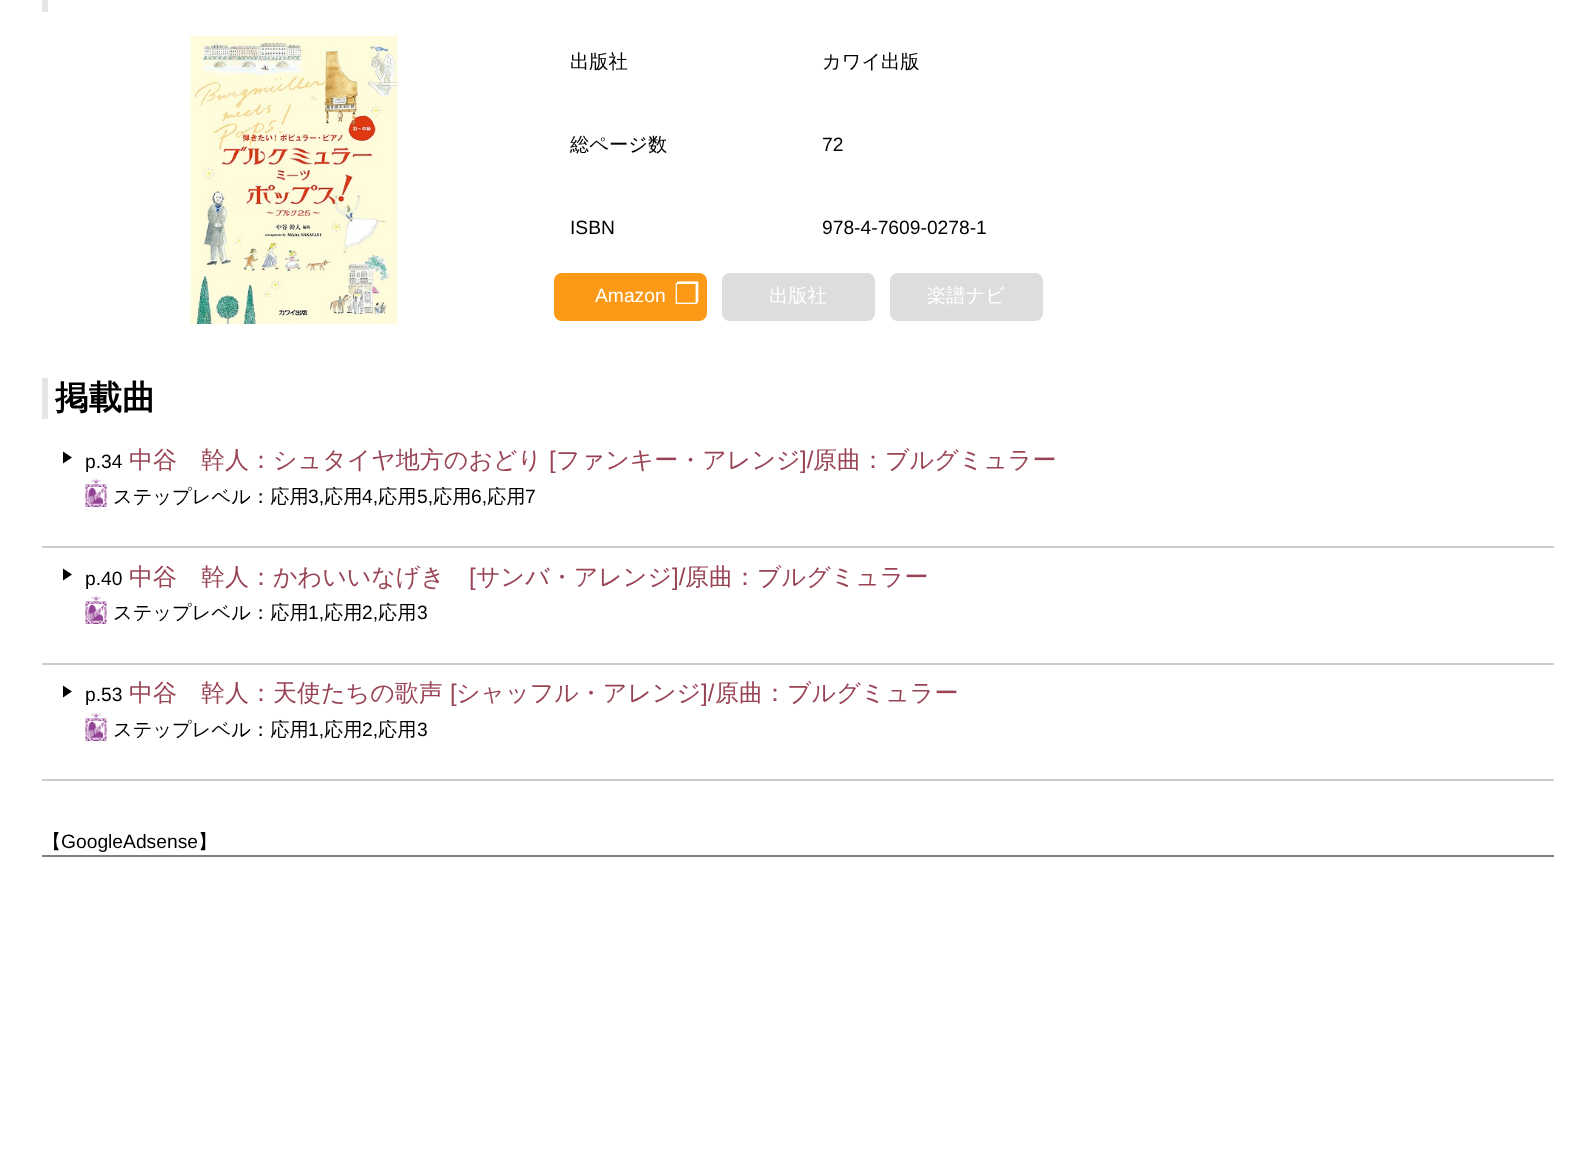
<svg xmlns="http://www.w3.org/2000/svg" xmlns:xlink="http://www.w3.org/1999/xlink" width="1596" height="1165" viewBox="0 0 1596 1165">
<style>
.cls-1{font:500 19.25px WenQuanYi Zen Hei;fill:#000000}
.cls-2{font:19.25px Liberation Sans;fill:#000000}
.cls-3{font:19.25px Liberation Sans;fill:#ffffff}
.cls-4{font:29px DejaVu Sans;fill:#ffffff}
.cls-5{font:500 19.25px WenQuanYi Zen Hei;fill:#ffffff}
.cls-6{font:bold 33.5px WenQuanYi Zen Hei;fill:#000000}
.cls-7{font:500 24px WenQuanYi Zen Hei;fill:#994455}
.cls-8{font:24px Liberation Sans;fill:#994455}
</style>
<rect width="100%" height="100%" fill="#ffffff"/>
<rect fill="#e5e5e5" x="42" y="0" width="6" height="12"/>
<image xlink:href="image0.png" x="190" y="36" width="208" height="288"/>
<rect fill="#fc9a18" x="554" y="273" width="153" height="48" rx="8"/>
<rect fill="#dddddd" x="722" y="273" width="153" height="48" rx="8"/>
<rect fill="#dddddd" x="890" y="273" width="153" height="48" rx="8"/>
<rect fill="#e5e5e5" x="42" y="378" width="6" height="41"/>
<rect fill="#cccccc" x="42" y="546" width="1512" height="2"/>
<path fill="#000000" d="M63 463.5V451.5L72 457.5Z"/>
<image xlink:href="image1.png" x="85" y="478" width="22" height="29"/>
<rect fill="#cccccc" x="42" y="663" width="1512" height="2"/>
<path fill="#000000" d="M63 580.5V568.5L72 574.5Z"/>
<image xlink:href="image1.png" x="85" y="595" width="22" height="29"/>
<rect fill="#cccccc" x="42" y="779" width="1512" height="2"/>
<path fill="#000000" d="M63 697.5V685.5L72 691.5Z"/>
<image xlink:href="image1.png" x="85" y="712" width="22" height="29"/>
<rect fill="#808080" x="42" y="855" width="1512" height="2"/>
<text class="cls-1" x="570" y="68">出版社</text>
<text class="cls-1" x="822" y="68">カワイ出版</text>
<text class="cls-1" x="570" y="151">総ページ数</text>
<text class="cls-2" x="822" y="151">72</text>
<text class="cls-2" x="570" y="234">ISBN</text>
<text class="cls-2" x="822" y="234">978-4-7609-0278-1</text>
<text class="cls-3" x="595" y="302">Amazon</text>
<text class="cls-4" x="674" y="304">❐</text>
<text class="cls-5" x="769" y="302">出版社</text>
<text class="cls-5" x="927" y="302">楽譜ナビ</text>
<text class="cls-6" x="55" y="409">掲載曲</text>
<text class="cls-2" x="85" y="468">p.34</text>
<text class="cls-7" x="129" y="468">中谷　幹人：シュタイヤ地方のおどり</text>
<text class="cls-8" x="549" y="468">[</text>
<text class="cls-7" x="556" y="468">ファンキー・アレンジ</text>
<text class="cls-8" x="800" y="468">]/</text>
<text class="cls-7" x="813" y="468">原曲：ブルグミュラー</text>
<text class="cls-1" x="113" y="503">ステップレベル：応用</text>
<text class="cls-2" x="308" y="503">3,</text>
<text class="cls-1" x="324" y="503">応用</text>
<text class="cls-2" x="362" y="503">4,</text>
<text class="cls-1" x="378" y="503">応用</text>
<text class="cls-2" x="417" y="503">5,</text>
<text class="cls-1" x="433" y="503">応用</text>
<text class="cls-2" x="471" y="503">6,</text>
<text class="cls-1" x="487" y="503">応用</text>
<text class="cls-2" x="525" y="503">7</text>
<text class="cls-2" x="85" y="585">p.40</text>
<text class="cls-7" x="129" y="585">中谷　幹人：かわいいなげき</text>
<text class="cls-8" x="469" y="585">[</text>
<text class="cls-7" x="476" y="585">サンバ・アレンジ</text>
<text class="cls-8" x="672" y="585">]/</text>
<text class="cls-7" x="685" y="585">原曲：ブルグミュラー</text>
<text class="cls-1" x="113" y="619">ステップレベル：応用</text>
<text class="cls-2" x="308" y="619">1,</text>
<text class="cls-1" x="324" y="619">応用</text>
<text class="cls-2" x="362" y="619">2,</text>
<text class="cls-1" x="378" y="619">応用</text>
<text class="cls-2" x="417" y="619">3</text>
<text class="cls-2" x="85" y="701">p.53</text>
<text class="cls-7" x="129" y="701">中谷　幹人：天使たちの歌声</text>
<text class="cls-8" x="450" y="701">[</text>
<text class="cls-7" x="456" y="701">シャッフル・アレンジ</text>
<text class="cls-8" x="701" y="701">]/</text>
<text class="cls-7" x="715" y="701">原曲：ブルグミュラー</text>
<text class="cls-1" x="113" y="736">ステップレベル：応用</text>
<text class="cls-2" x="308" y="736">1,</text>
<text class="cls-1" x="324" y="736">応用</text>
<text class="cls-2" x="362" y="736">2,</text>
<text class="cls-1" x="378" y="736">応用</text>
<text class="cls-2" x="417" y="736">3</text>
<text class="cls-1" x="42" y="848">【</text>
<text class="cls-2" x="61" y="848">GoogleAdsense</text>
<text class="cls-1" x="198" y="848">】</text>
</svg>
